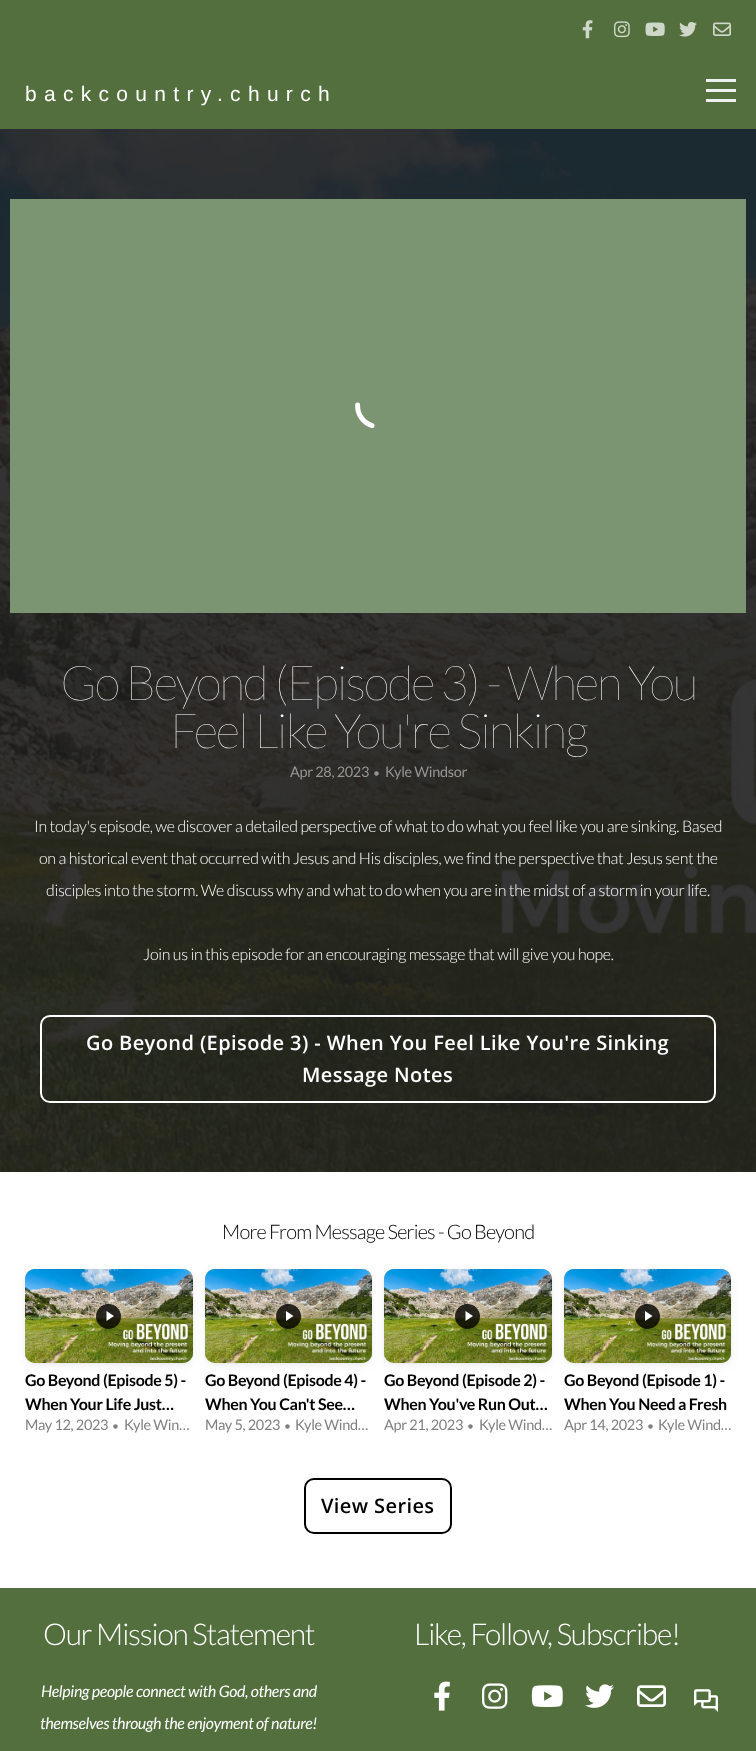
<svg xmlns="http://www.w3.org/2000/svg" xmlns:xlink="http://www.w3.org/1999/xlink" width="756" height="1751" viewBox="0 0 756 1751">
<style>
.cls-1{font:21px Liberation Sans;letter-spacing:7.3px;fill:#ffffff}
.cls-2{font:100 48px Lato;letter-spacing:-1.9px;fill:#ffffff}
.cls-3{font:14.5px Lato;letter-spacing:-0.32px;fill:#969593}
.cls-4{font:12px Lato;letter-spacing:-0.32px;fill:#969593}
.cls-5{font:300 16px Lato;letter-spacing:-0.32px;fill:#ffffff}
.cls-6{font:600 20px Open Sans;letter-spacing:0.4px;fill:#ffffff}
.cls-7{font:300 20px Lato;letter-spacing:-0.8px;fill:#000000}
.cls-8{font:bold 16px Lato;letter-spacing:-0.32px;fill:#000000}
.cls-9{font:14.5px Lato;letter-spacing:-0.32px;fill:#808080}
.cls-10{font:12px Lato;letter-spacing:-0.32px;fill:#808080}
.cls-11{font:600 20px Open Sans;letter-spacing:0.4px;fill:#000000}
.cls-12{font:300 30px Lato;letter-spacing:-1.2px;fill:#ffffff}
.cls-13{font:italic 16px Lato;letter-spacing:-0.32px;fill:#ffffff}
</style>
<rect width="100%" height="100%" fill="#546f3e"/>
<image xlink:href="image0.png" x="582" y="20" width="11" height="19"/>
<image xlink:href="image1.png" x="614" y="21" width="16" height="17"/>
<image xlink:href="image2.png" x="645" y="22" width="20" height="14"/>
<image xlink:href="image3.png" x="679" y="22" width="18" height="15"/>
<image xlink:href="image4.png" x="713" y="22" width="18" height="14"/>
<rect fill="#ecf0f1" x="706" y="79" width="30" height="3"/>
<rect fill="#ecf0f1" x="706" y="89" width="30" height="3"/>
<rect fill="#ecf0f1" x="706" y="99" width="30" height="3"/>
<image xlink:href="image5.png" x="0" y="129" width="756" height="1043"/>
<image xlink:href="image6.png" x="10" y="199" width="736" height="414"/>
<rect fill="none" stroke="#ffffff" stroke-width="2" x="41" y="1016" width="674" height="86" rx="9"/>
<rect fill="#ffffff" x="0" y="1172" width="756" height="416"/>
<rect fill="#000000" fill-opacity="0.04" filter="blur(1px)" x="25" y="1270" width="168" height="94" rx="10"/>
<rect fill="#000000" fill-opacity="0.06" filter="blur(5px)" x="25" y="1272" width="168" height="94" rx="10"/>
<rect fill="#7b9472" x="25" y="1269" width="168" height="94" rx="10"/>
<image xlink:href="image7.png" x="25" y="1269" width="168" height="94"/>
<circle fill="#000000" fill-opacity="0.8" cx="108.5" cy="1316.5" r="12.5"/>
<path fill="#ffffff" d="M106.5 1321V1311L114 1316Z"/>
<rect fill="#000000" fill-opacity="0.04" filter="blur(1px)" x="205" y="1270" width="167" height="94" rx="10"/>
<rect fill="#000000" fill-opacity="0.06" filter="blur(5px)" x="205" y="1272" width="167" height="94" rx="10"/>
<rect fill="#7b9472" x="205" y="1269" width="167" height="94" rx="10"/>
<image xlink:href="image8.png" x="205" y="1269" width="167" height="94"/>
<circle fill="#000000" fill-opacity="0.8" cx="288.5" cy="1316.5" r="12.5"/>
<path fill="#ffffff" d="M286 1321V1311L293.5 1316Z"/>
<rect fill="#000000" fill-opacity="0.04" filter="blur(1px)" x="384" y="1270" width="168" height="94" rx="10"/>
<rect fill="#000000" fill-opacity="0.06" filter="blur(5px)" x="384" y="1272" width="168" height="94" rx="10"/>
<rect fill="#7b9472" x="384" y="1269" width="168" height="94" rx="10"/>
<image xlink:href="image9.png" x="384" y="1269" width="168" height="94"/>
<circle fill="#000000" fill-opacity="0.8" cx="467.5" cy="1316.5" r="12.5"/>
<path fill="#ffffff" d="M465.5 1321V1311L473 1316Z"/>
<rect fill="#000000" fill-opacity="0.04" filter="blur(1px)" x="564" y="1270" width="167" height="94" rx="10"/>
<rect fill="#000000" fill-opacity="0.06" filter="blur(5px)" x="564" y="1272" width="167" height="94" rx="10"/>
<rect fill="#7b9472" x="564" y="1269" width="167" height="94" rx="10"/>
<image xlink:href="image10.png" x="564" y="1269" width="167" height="94"/>
<circle fill="#000000" fill-opacity="0.8" cx="647.5" cy="1316.5" r="12.5"/>
<path fill="#ffffff" d="M645 1321V1311L652.5 1316Z"/>
<rect fill="none" stroke="#000000" stroke-width="2" x="305" y="1479" width="146" height="54" rx="9"/>
<image xlink:href="image11.png" x="434" y="1681" width="16" height="30"/>
<image xlink:href="image12.png" x="482" y="1683" width="26" height="26"/>
<image xlink:href="image13.png" x="531" y="1685" width="32" height="22"/>
<image xlink:href="image14.png" x="585" y="1684" width="29" height="24"/>
<image xlink:href="image15.png" x="637" y="1685" width="29" height="22"/>
<image xlink:href="image16.png" x="694" y="1689" width="24" height="23"/>
<text class="cls-1" x="25" y="101">backcountry.church</text>
<text class="cls-2" x="60" y="700">Go Beyond (Episode 3) - When You</text>
<text class="cls-2" x="170" y="748">Feel Like You're Sinking</text>
<text class="cls-3" x="290" y="777">Apr 28, 2023</text>
<text class="cls-4" x="373" y="777">•</text>
<text class="cls-3" x="385" y="777">Kyle Windsor</text>
<text class="cls-5" x="34" y="832">In today's episode, we discover a detailed perspective of what to do what you feel like you are sinking. Based</text>
<text class="cls-5" x="39" y="864">on a historical event that occurred with Jesus and His disciples, we find the perspective that Jesus sent the</text>
<text class="cls-5" x="46" y="896">disciples into the storm. We discuss why and what to do when you are in the midst of a storm in your life.</text>
<text class="cls-5" x="143" y="960">Join us in this episode for an encouraging message that will give you hope.</text>
<text class="cls-6" x="86" y="1050">Go Beyond (Episode 3) - When You Feel Like You're Sinking</text>
<text class="cls-6" x="302" y="1082">Message Notes</text>
<text class="cls-7" x="222" y="1239">More From Message Series - Go Beyond</text>
<text class="cls-8"><tspan x="25" y="1386">Go Beyond (Episode 5) -</tspan><tspan x="25" y="1410">When Your Life Just…</tspan></text>
<text class="cls-9" x="25" y="1430">May 12, 2023</text>
<text class="cls-10" x="112" y="1430">•</text>
<text class="cls-9" x="124" y="1430">Kyle Win…</text>
<text class="cls-8"><tspan x="205" y="1386">Go Beyond (Episode 4) -</tspan><tspan x="205" y="1410">When You Can't See…</tspan></text>
<text class="cls-9" x="205" y="1430">May 5, 2023</text>
<text class="cls-10" x="284" y="1430">•</text>
<text class="cls-9" x="295" y="1430">Kyle Wind…</text>
<text class="cls-8"><tspan x="384" y="1386">Go Beyond (Episode 2) -</tspan><tspan x="384" y="1410">When You've Run Out…</tspan></text>
<text class="cls-9" x="384" y="1430">Apr 21, 2023</text>
<text class="cls-10" x="467" y="1430">•</text>
<text class="cls-9" x="479" y="1430">Kyle Wind…</text>
<text class="cls-8"><tspan x="564" y="1386">Go Beyond (Episode 1) -</tspan><tspan x="564" y="1410">When You Need a Fresh</tspan></text>
<text class="cls-9" x="564" y="1430">Apr 14, 2023</text>
<text class="cls-10" x="647" y="1430">•</text>
<text class="cls-9" x="658" y="1430">Kyle Wind…</text>
<text class="cls-11" x="321" y="1513">View Series</text>
<text class="cls-12" x="43" y="1645">Our Mission Statement</text>
<text class="cls-13" x="41" y="1697">Helping people connect with God, others and</text>
<text class="cls-13" x="40" y="1729">themselves through the enjoyment of nature!</text>
<text class="cls-12" x="414" y="1645">Like, Follow, Subscribe!</text>
</svg>
